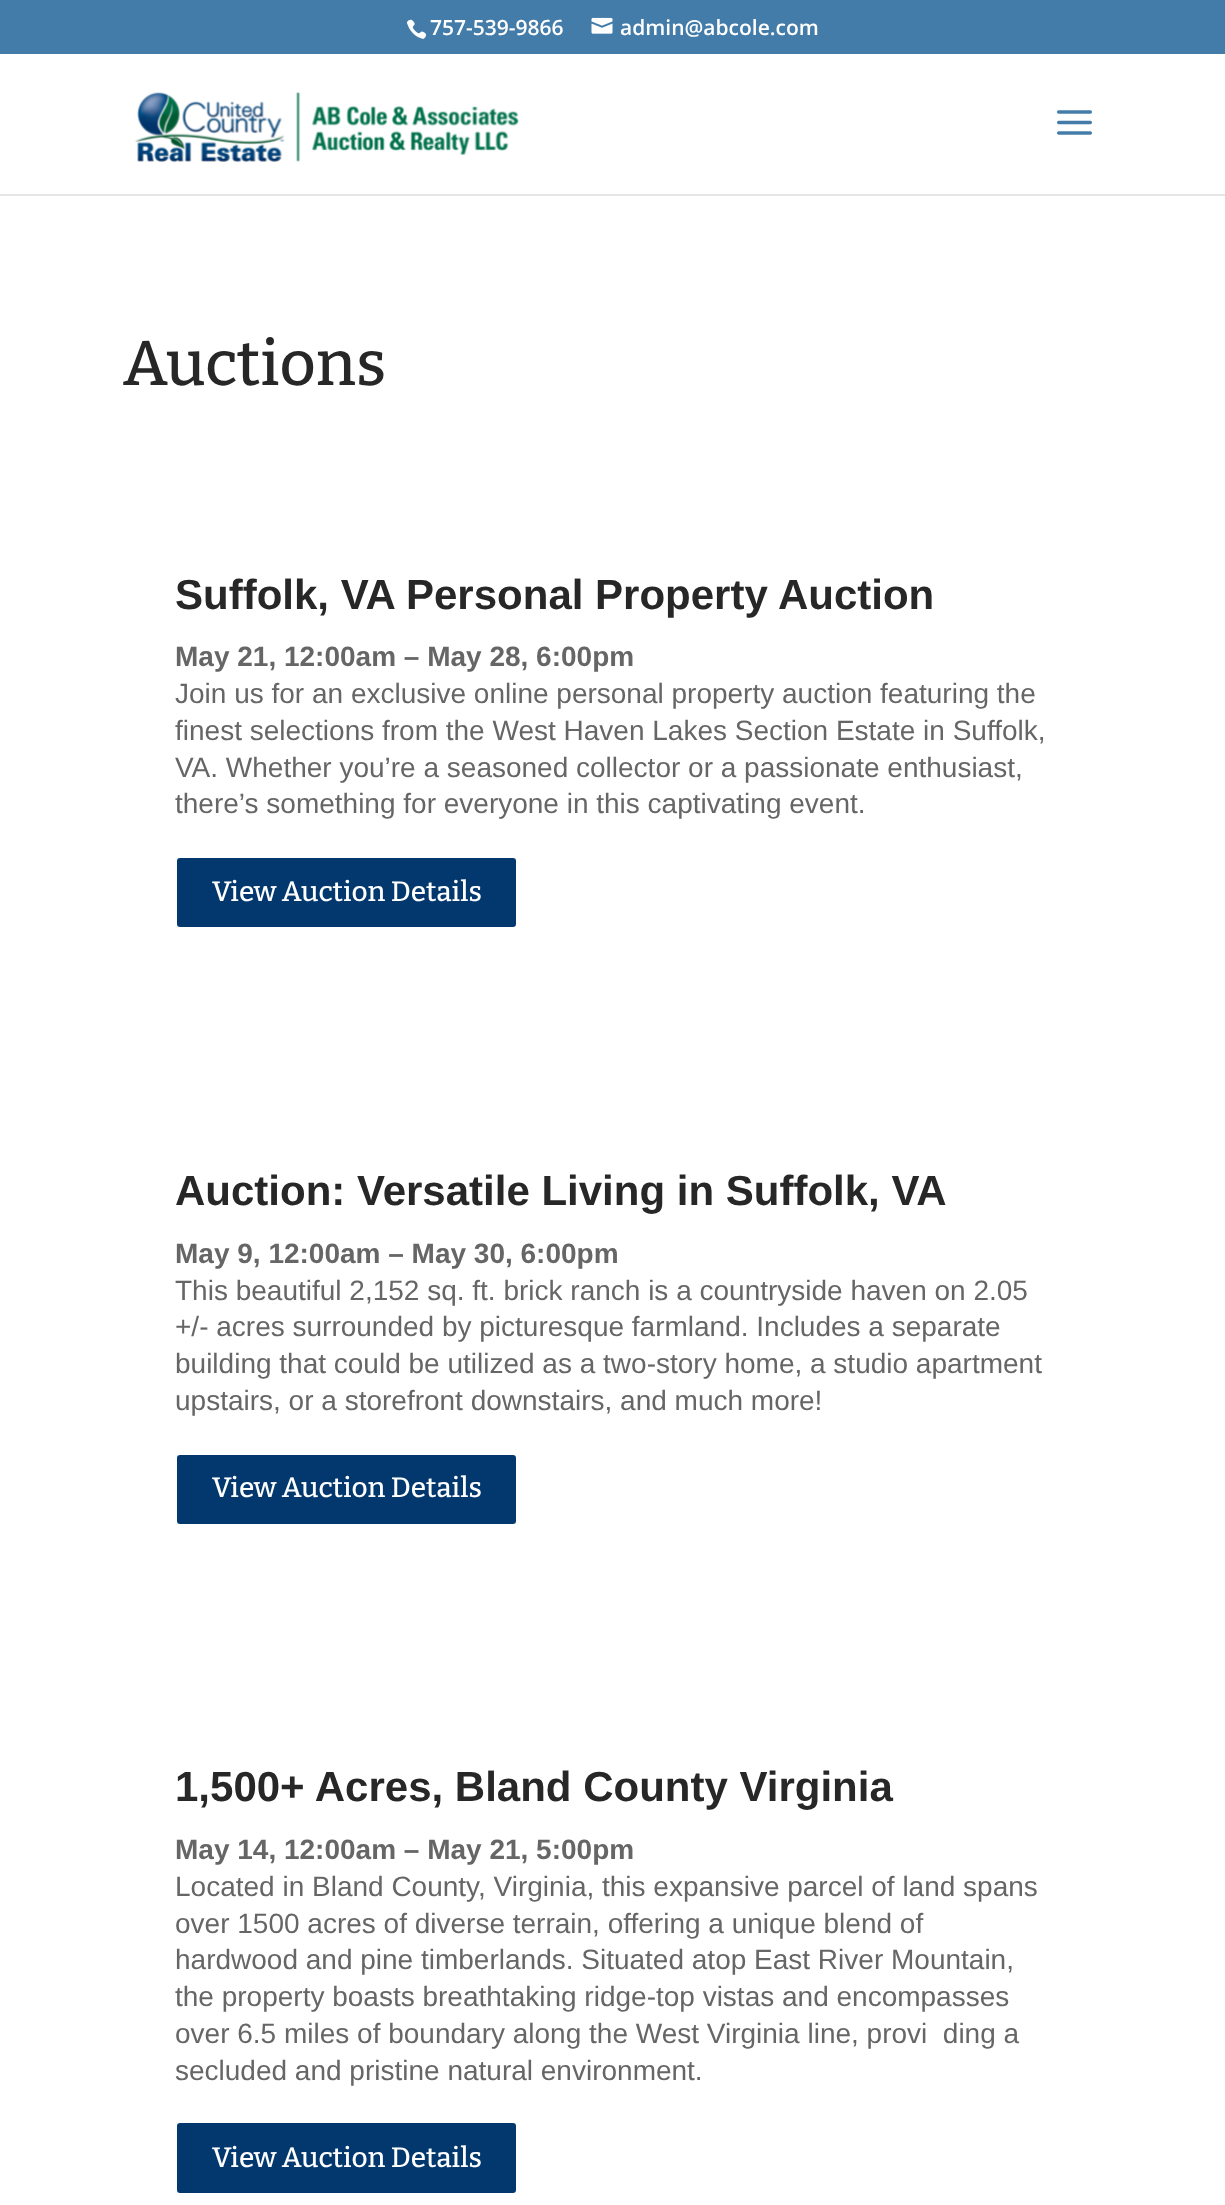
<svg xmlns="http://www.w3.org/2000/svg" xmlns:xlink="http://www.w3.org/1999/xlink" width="1225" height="2205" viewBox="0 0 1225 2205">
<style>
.cls-1{font:600 21px Open Sans;fill:#ffffff}
.cls-2{font:500 63px Bitter;fill:#272727}
.cls-3{font:bold 42px Liberation Sans;fill:#272727}
.cls-4{font:bold 28px Liberation Sans;fill:#666666}
.cls-5{font:28px Liberation Sans;fill:#666666}
.cls-6{font:500 28px Bitter;fill:#ffffff}
</style>
<rect width="100%" height="100%" fill="#ffffff"/>
<rect fill="#437ca8" x="0" y="0" width="1225" height="54"/>
<image xlink:href="image0.png" x="406" y="19" width="21" height="20"/>
<image xlink:href="image1.png" x="591" y="17" width="22" height="17"/>
<rect fill="#e6e6e6" x="0" y="194" width="1225" height="2"/>
<image xlink:href="image2.png" x="135" y="92" width="384" height="70"/>
<image xlink:href="image3.png" x="1057" y="110" width="35" height="25"/>
<rect fill="#02386e" stroke="#ffffff" stroke-width="2" x="176" y="857" width="341" height="71" rx="4"/>
<rect fill="#02386e" stroke="#ffffff" stroke-width="2" x="176" y="1454" width="341" height="71" rx="4"/>
<rect fill="#02386e" stroke="#ffffff" stroke-width="2" x="176" y="2122" width="341" height="72" rx="4"/>
<text class="cls-1" x="430" y="35">757-539-9866</text>
<text class="cls-1" x="620" y="35">admin@abcole.com</text>
<text class="cls-2" x="123" y="385">Auctions</text>
<text class="cls-3" x="175" y="609">Suffolk, VA Personal Property Auction</text>
<text class="cls-4" x="175" y="666">May 21, 12:00am – May 28, 6:00pm</text>
<text class="cls-5"><tspan x="175" y="703">Join us for an exclusive online personal property auction featuring the</tspan><tspan x="175" y="740">finest selections from the West Haven Lakes Section Estate in Suffolk,</tspan><tspan x="175" y="777">VA. Whether you’re a seasoned collector or a passionate enthusiast,</tspan><tspan x="175" y="813">there’s something for everyone in this captivating event.</tspan></text>
<text class="cls-6" x="212" y="901">View Auction Details</text>
<text class="cls-3" x="175" y="1205">Auction: Versatile Living in Suffolk, VA</text>
<text class="cls-4" x="175" y="1263">May 9, 12:00am – May 30, 6:00pm</text>
<text class="cls-5"><tspan x="175" y="1300">This beautiful 2,152 sq. ft. brick ranch is a countryside haven on 2.05</tspan><tspan x="175" y="1336">+/- acres surrounded by picturesque farmland. Includes a separate</tspan><tspan x="175" y="1373">building that could be utilized as a two-story home, a studio apartment</tspan><tspan x="175" y="1410">upstairs, or a storefront downstairs, and much more!</tspan></text>
<text class="cls-6" x="212" y="1497">View Auction Details</text>
<text class="cls-3" x="175" y="1801">1,500+ Acres, Bland County Virginia</text>
<text class="cls-4" x="175" y="1859">May 14, 12:00am – May 21, 5:00pm</text>
<text class="cls-5" xml:space="preserve"><tspan x="175" y="1896">Located in Bland County, Virginia, this expansive parcel of land spans</tspan><tspan x="175" y="1933">over 1500 acres of diverse terrain, offering a unique blend of</tspan><tspan x="175" y="1969">hardwood and pine timberlands. Situated atop East River Mountain,</tspan><tspan x="175" y="2006">the property boasts breathtaking ridge-top vistas and encompasses</tspan><tspan x="175" y="2043">over 6.5 miles of boundary along the West Virginia line, provi  ding a</tspan><tspan x="175" y="2080">secluded and pristine natural environment.</tspan></text>
<text class="cls-6" x="212" y="2167">View Auction Details</text>
</svg>
